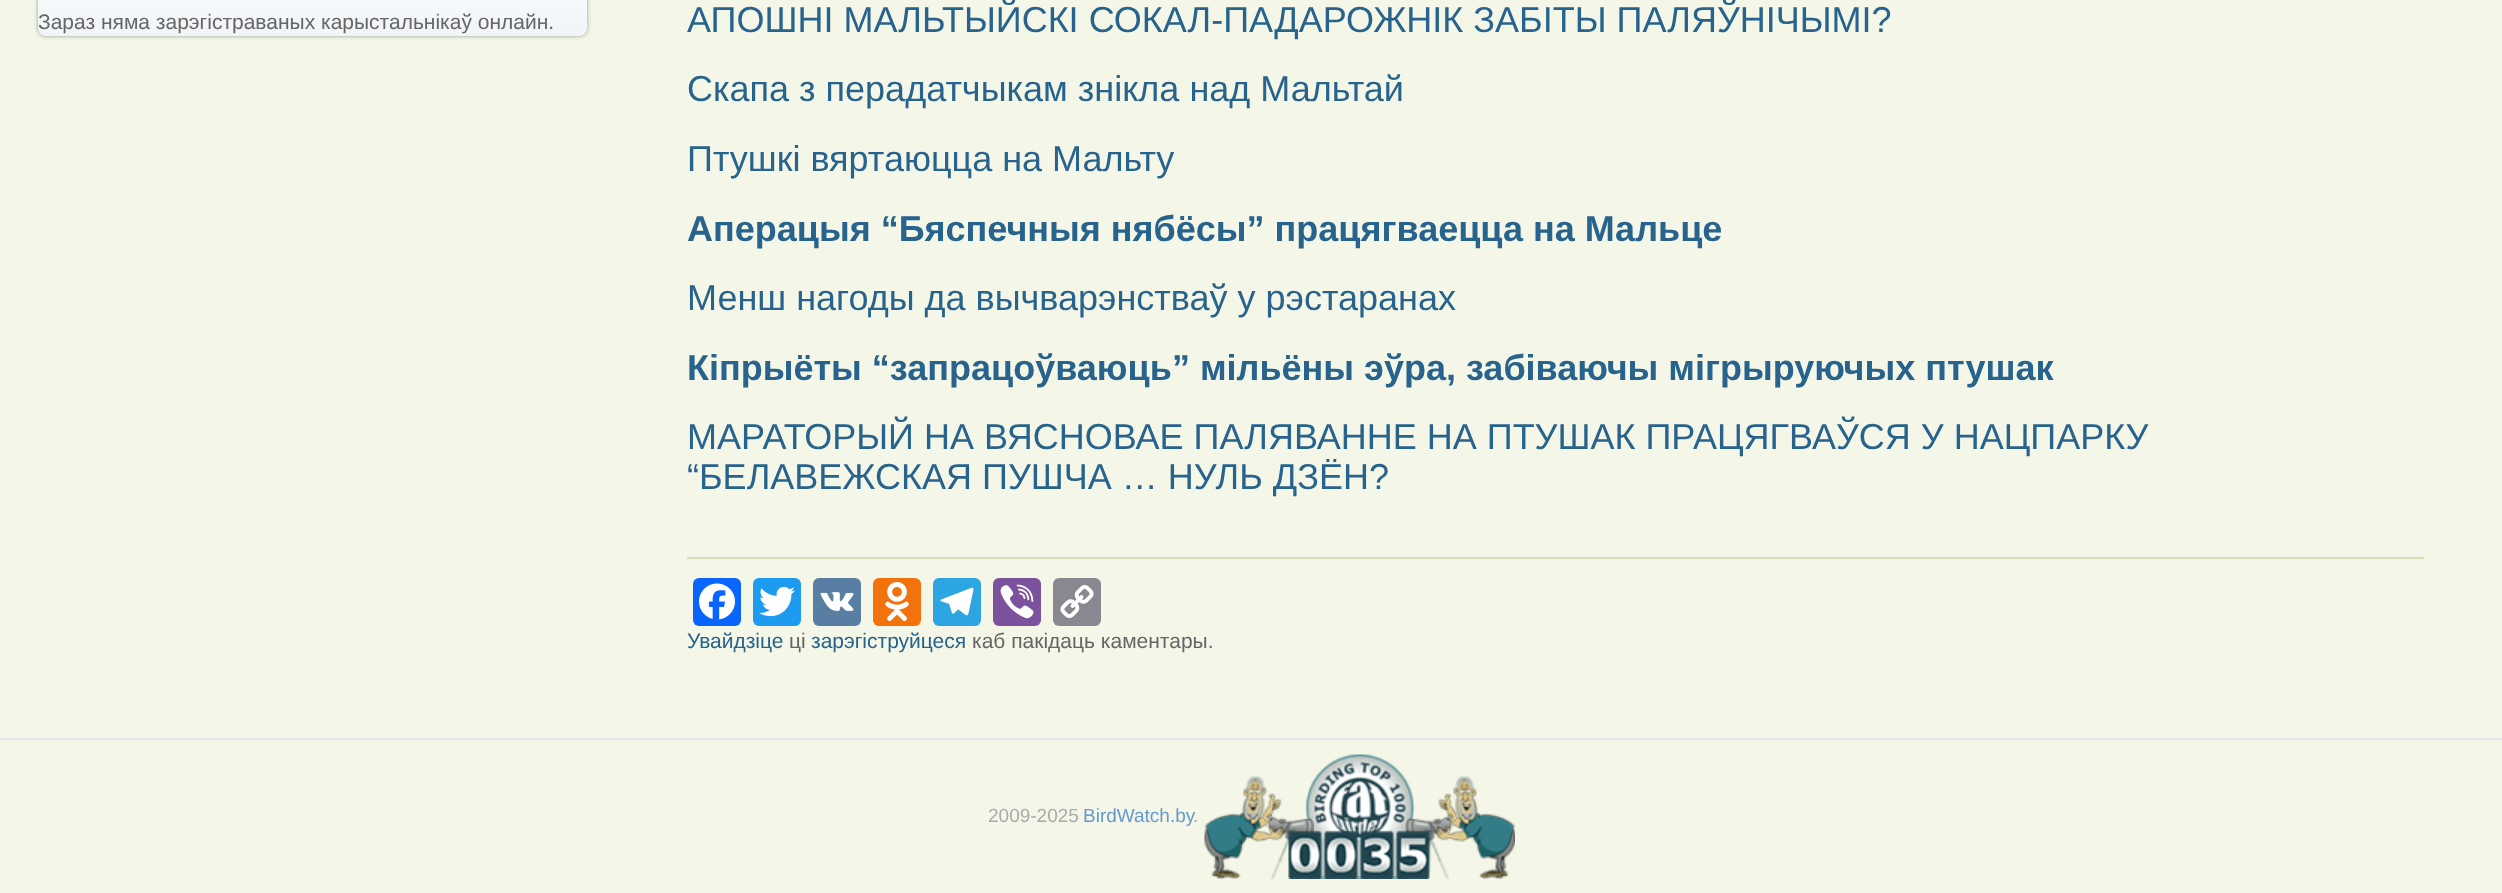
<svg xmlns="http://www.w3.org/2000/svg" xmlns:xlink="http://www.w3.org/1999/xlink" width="2502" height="893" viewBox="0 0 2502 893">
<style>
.cls-1{font:21px Liberation Sans;fill:#666666}
.cls-2{font:36px Liberation Sans;fill:#27638c}
.cls-3{font:bold 36px Liberation Sans;fill:#27638c}
.cls-4{font:21px Liberation Sans;fill:#27638c}
.cls-5{font:19px Liberation Sans;fill:#aaaaaa}
.cls-6{font:19px Liberation Sans;fill:#6699cc}
</style>
<defs>
<linearGradient id="g1" gradientUnits="userSpaceOnUse" x1="38" y1="-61" x2="38" y2="36"><stop offset="0" stop-color="#ffffff"/><stop offset="1" stop-color="#f1f5f8"/></linearGradient>
</defs>
<rect width="100%" height="100%" fill="#f4f7e7"/>
<rect fill="#999999" filter="blur(2px)" x="38" y="-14" width="549" height="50" rx="8"/>
<rect fill="url(#g1)" x="38" y="-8" width="549" height="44" rx="8"/>
<rect fill="#d6ddb9" x="687" y="557" width="1737" height="2"/>
<rect fill="#0866ff" x="693" y="578" width="48" height="48" rx="6"/>
<image xlink:href="image0.png" x="699" y="583" width="36" height="37"/>
<rect fill="#1d9bf0" x="753" y="578" width="48" height="48" rx="6"/>
<image xlink:href="image1.png" x="759" y="586" width="36" height="31"/>
<rect fill="#587ea3" x="813" y="578" width="48" height="48" rx="6"/>
<image xlink:href="image2.png" x="820" y="592" width="34" height="19"/>
<rect fill="#f2720c" x="873" y="578" width="48" height="48" rx="6"/>
<image xlink:href="image3.png" x="885" y="582" width="24" height="39"/>
<rect fill="#2ca5e0" x="933" y="578" width="48" height="48" rx="6"/>
<image xlink:href="image4.png" x="940" y="587" width="34" height="29"/>
<rect fill="#7c529e" x="993" y="578" width="48" height="48" rx="6"/>
<image xlink:href="image5.png" x="1000" y="584" width="34" height="35"/>
<rect fill="#888990" x="1053" y="578" width="48" height="48" rx="6"/>
<image xlink:href="image6.png" x="1060" y="585" width="34" height="33"/>
<rect fill="#e5e5e5" x="0" y="738" width="2502" height="2"/>
<image xlink:href="image7.png" x="1204" y="754" width="311" height="125"/>
<text class="cls-1" x="38" y="29">Зараз няма зарэгістраваных карыстальнікаў онлайн.</text>
<text class="cls-2"><tspan x="687" y="32">АПОШНІ МАЛЬТЫЙСКІ СОКАЛ-ПАДАРОЖНІК ЗАБІТЫ ПАЛЯЎНІЧЫМІ?</tspan><tspan x="687" y="101">Скапа з перадатчыкам знікла над Мальтай</tspan><tspan x="687" y="171">Птушкі вяртаюцца на Мальту</tspan></text>
<text class="cls-3" x="687" y="241">Аперацыя “Бяспечныя нябёсы” працягваецца на Мальце</text>
<text class="cls-2" x="687" y="310">Менш нагоды да вычварэнстваў у рэстаранах</text>
<text class="cls-3" x="687" y="380">Кіпрыёты “запрацоўваюць” мільёны эўра, забіваючы мігрыруючых птушак</text>
<text class="cls-2"><tspan x="687" y="449">МАРАТОРЫЙ НА ВЯСНОВАЕ ПАЛЯВАННЕ НА ПТУШАК ПРАЦЯГВАЎСЯ У НАЦПАРКУ</tspan><tspan x="687" y="489">“БЕЛАВЕЖСКАЯ ПУШЧА … НУЛЬ ДЗЁН?</tspan></text>
<text class="cls-4" x="687" y="648">Увайдзіце</text>
<text class="cls-1" x="789" y="648">ці</text>
<text class="cls-4" x="811" y="648">зарэгіструйцеся</text>
<text class="cls-1" x="972" y="648">каб пакідаць каментары.</text>
<text class="cls-5" x="988" y="822">2009-2025</text>
<text class="cls-6" x="1083" y="822">BirdWatch.by</text>
<text class="cls-5" x="1193" y="822">.</text>
</svg>
